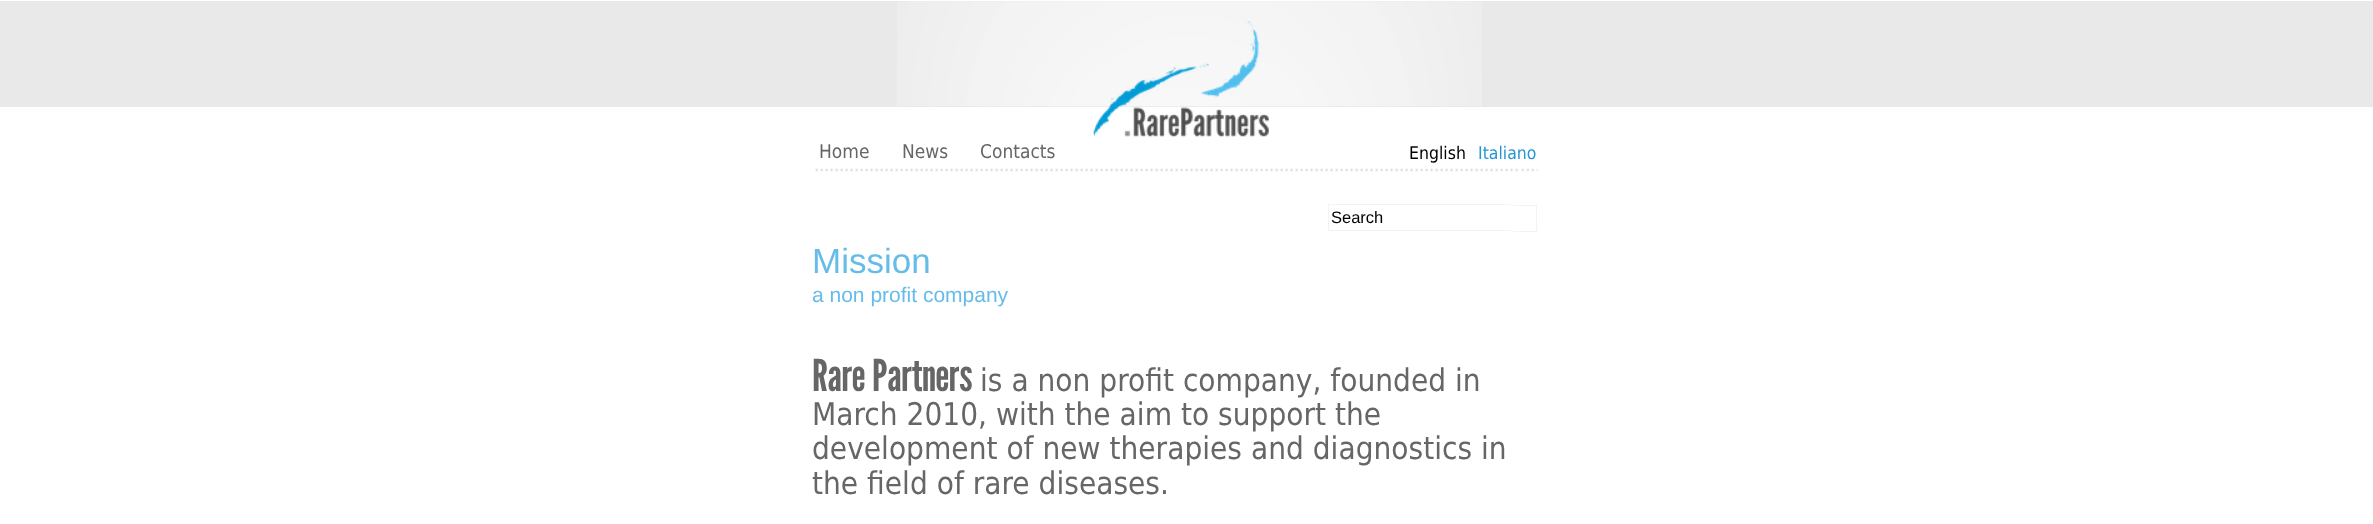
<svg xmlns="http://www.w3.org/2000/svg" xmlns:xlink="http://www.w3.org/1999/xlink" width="2373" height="524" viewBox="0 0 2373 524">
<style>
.cls-1{font:19px DejaVu Sans;fill:#666666}
.cls-2{font:17.5px DejaVu Sans;fill:#000000}
.cls-3{font:17.5px DejaVu Sans;fill:#2695d2}
.cls-4{font:16.5px Liberation Sans;fill:#000000}
.cls-5{font:35px Liberation Sans;fill:#66bce9}
.cls-6{font:21px Liberation Sans;fill:#66bce9}
.cls-7{font:44px League Gothic;fill:#666666}
.cls-8{font:31.25px DejaVu Sans;fill:#666666}
</style>
<rect width="100%" height="100%" fill="#ffffff"/>
<rect fill="#e9e9e9" x="0" y="1" width="2373" height="106"/>
<image xlink:href="image0.png" x="897" y="1" width="585" height="106"/>
<image xlink:href="image1.png" x="1093" y="21" width="176" height="116"/>
<image xlink:href="image2.png" x="815" y="168" width="723" height="4"/>
<rect fill="#f3f3f3" x="1328" y="204" width="183" height="1"/>
<rect fill="#f3f3f3" x="1328" y="230" width="183" height="1"/>
<rect fill="#f3f3f3" x="1328" y="204" width="1" height="27"/>
<rect fill="#f3f3f3" x="1513" y="205" width="25" height="1"/>
<rect fill="#f3f3f3" x="1536" y="205" width="1" height="28"/>
<rect fill="#f3f3f3" x="1513" y="231" width="25" height="1"/>
<text class="cls-1" x="819" y="158">Home</text>
<text class="cls-1" x="902" y="158">News</text>
<text class="cls-1" x="980" y="158">Contacts</text>
<text class="cls-2" x="1409" y="159">English</text>
<text class="cls-3" x="1478" y="159">Italiano</text>
<text class="cls-4" x="1331" y="223">Search</text>
<text class="cls-5" x="812" y="273">Mission</text>
<text class="cls-6" x="812" y="302">a non profit company</text>
<text class="cls-7" x="812" y="391">Rare Partners</text>
<text class="cls-8" x="980" y="391">is a non profit company, founded in</text>
<text class="cls-8"><tspan x="812" y="425">March 2010, with the aim to support the</tspan><tspan x="812" y="459">development of new therapies and diagnostics in</tspan><tspan x="812" y="494">the field of rare diseases.</tspan></text>
</svg>
